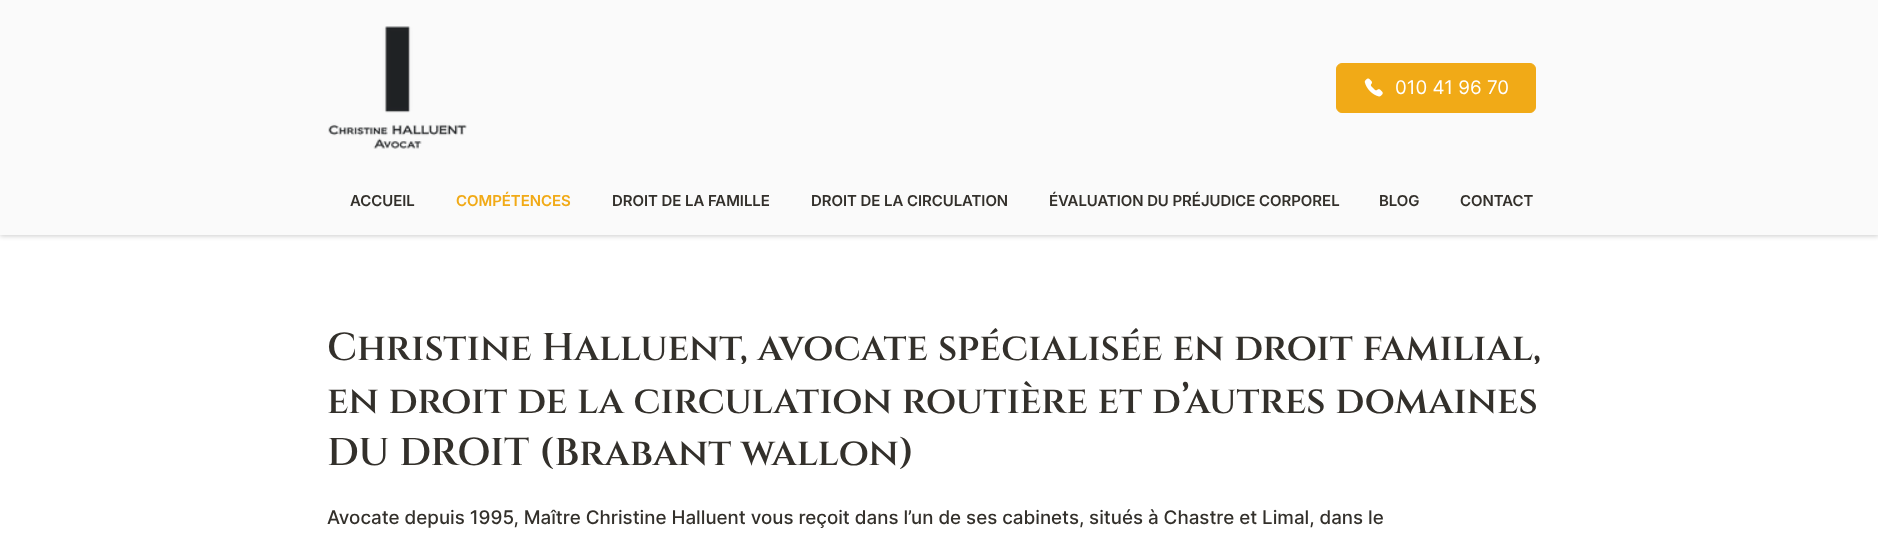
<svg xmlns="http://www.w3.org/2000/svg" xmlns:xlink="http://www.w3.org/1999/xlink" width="1878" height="548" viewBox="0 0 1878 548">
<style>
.cls-1{font:18.75px Inter;fill:#ffffff}
.cls-2{font:600 15px Inter;fill:#33302b}
.cls-3{font:600 15px Inter;fill:#f1aa17}
.cls-4{font:600 38.75px Cinzel;fill:#33302b}
.cls-5{font:500 18.75px Inter;fill:#33302b}
</style>
<rect width="100%" height="100%" fill="#ffffff"/>
<rect fill="#000000" fill-opacity="0.2" filter="blur(2.5px)" x="0" y="1" width="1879" height="235"/>
<rect fill="#fafafa" x="0" y="0" width="1878" height="235"/>
<image xlink:href="image0.png" x="328" y="26" width="139" height="123"/>
<rect fill="#f1aa17" stroke="#f1aa17" x="1336.5" y="63.5" width="199" height="49" rx="5.5"/>
<image xlink:href="image1.png" x="1364" y="78" width="19" height="19"/>
<text class="cls-1" x="1395" y="94">010 41 96 70</text>
<text class="cls-2" x="350" y="206">ACCUEIL</text>
<text class="cls-3" x="456" y="206">COMPÉTENCES</text>
<text class="cls-2" x="612" y="206">DROIT DE LA FAMILLE</text>
<text class="cls-2" x="811" y="206">DROIT DE LA CIRCULATION</text>
<text class="cls-2" x="1049" y="206">ÉVALUATION DU PRÉJUDICE CORPOREL</text>
<text class="cls-2" x="1379" y="206">BLOG</text>
<text class="cls-2" x="1460" y="206">CONTACT</text>
<text class="cls-4"><tspan x="327" y="360">Christine Halluent, avocate spécialisée en droit familial,</tspan><tspan x="327" y="413">en droit de la circulation routière et d’autres domaines</tspan><tspan x="327" y="465">DU DROIT (Brabant wallon)</tspan></text>
<text class="cls-5" x="327" y="524">Avocate depuis 1995, Maître Christine Halluent vous reçoit dans l’un de ses cabinets, situés à Chastre et Limal, dans le</text>
</svg>
